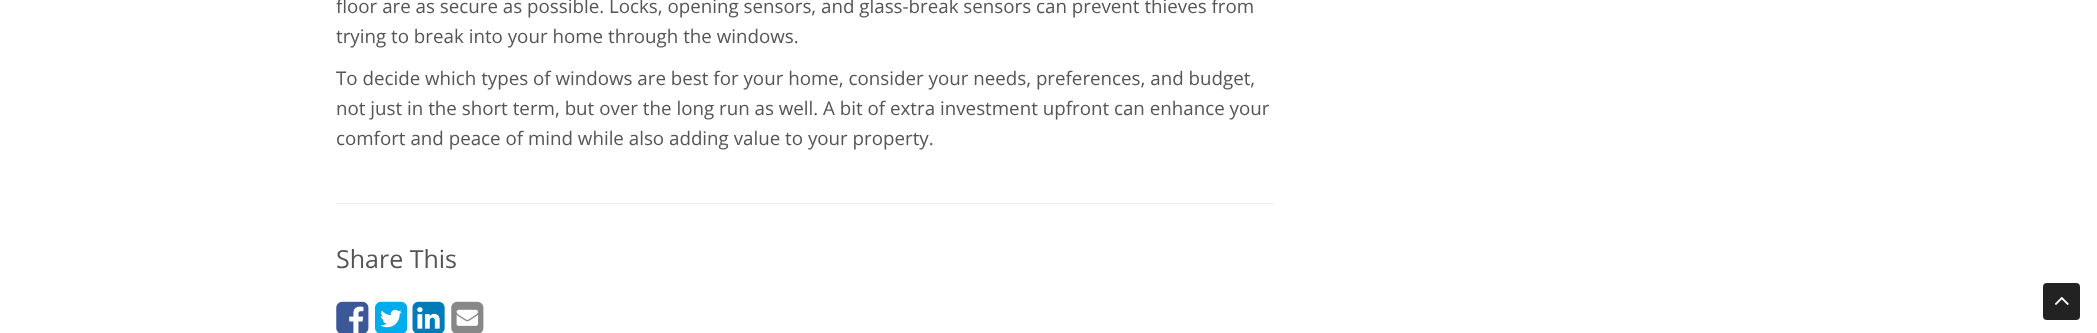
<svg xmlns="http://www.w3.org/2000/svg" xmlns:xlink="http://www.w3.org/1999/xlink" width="2097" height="333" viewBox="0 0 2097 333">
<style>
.cls-1{font:18.75px Open Sans;fill:#555555}
.cls-2{font:25px Open Sans;fill:#555555}
</style>
<rect width="100%" height="100%" fill="#ffffff"/>
<rect fill="#eeeeee" x="336" y="203" width="938" height="1"/>
<image xlink:href="image0.png" x="336" y="301" width="33" height="32"/>
<image xlink:href="image1.png" x="375" y="301" width="33" height="32"/>
<image xlink:href="image2.png" x="412" y="301" width="33" height="32"/>
<image xlink:href="image3.png" x="451" y="301" width="33" height="32"/>
<rect fill="#222222" x="2043" y="283" width="37" height="37" rx="4"/>
<image xlink:href="image4.png" x="2054" y="296" width="15" height="9"/>
<text class="cls-1"><tspan x="336" y="13">floor are as secure as possible. Locks, opening sensors, and glass-break sensors can prevent thieves from</tspan><tspan x="336" y="43">trying to break into your home through the windows.</tspan></text>
<text class="cls-1"><tspan x="336" y="85">To decide which types of windows are best for your home, consider your needs, preferences, and budget,</tspan><tspan x="336" y="115">not just in the short term, but over the long run as well. A bit of extra investment upfront can enhance your</tspan><tspan x="336" y="145">comfort and peace of mind while also adding value to your property.</tspan></text>
<text class="cls-2" x="336" y="268">Share This</text>
</svg>
